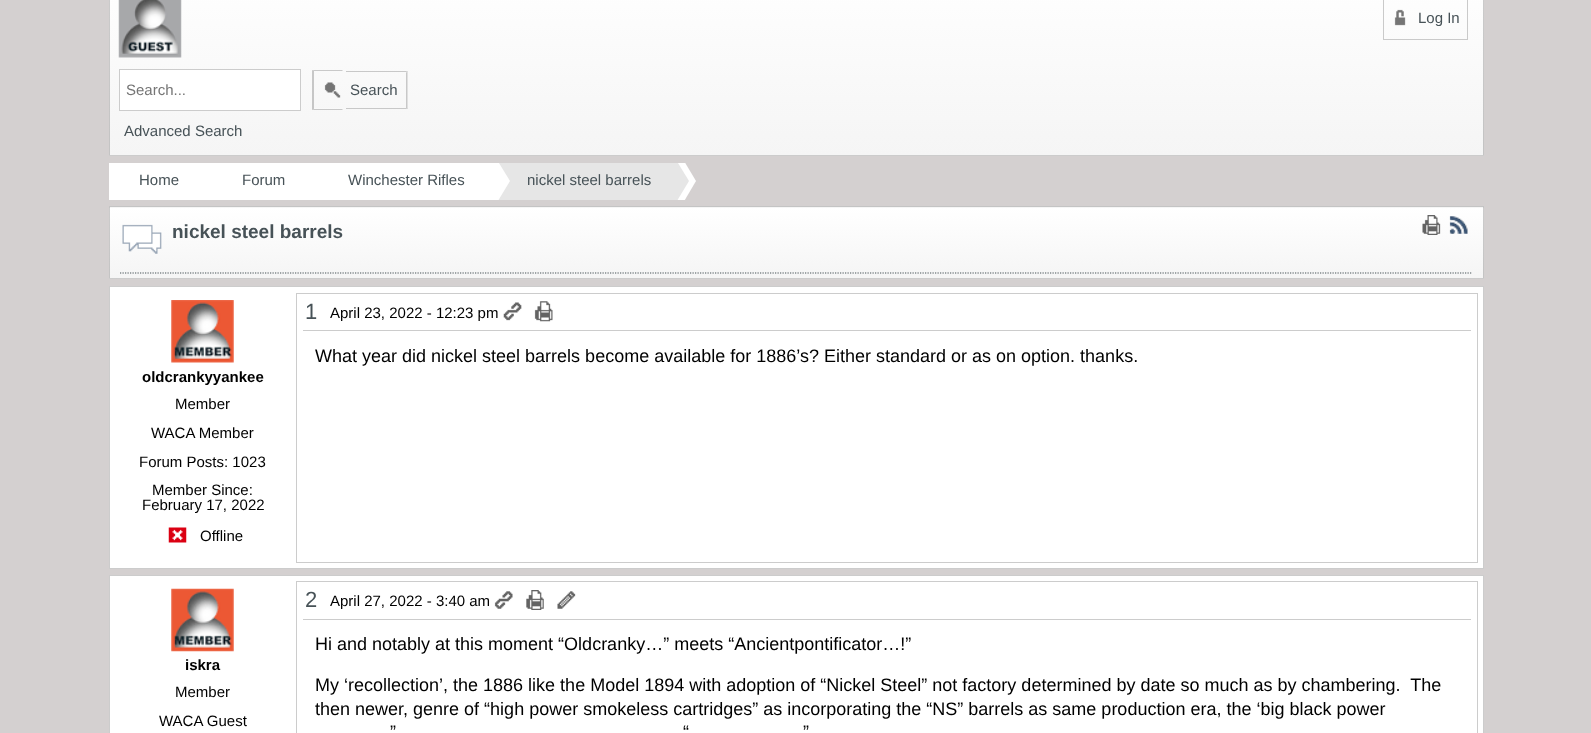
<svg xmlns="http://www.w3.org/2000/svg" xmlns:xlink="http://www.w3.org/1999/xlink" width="1591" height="733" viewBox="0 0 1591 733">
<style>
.cls-1{font:15px Liberation Sans;fill:#475257}
.cls-2{font:15px Liberation Sans;fill:#757575}
.cls-3{font:bold 19px Liberation Sans;fill:#475257}
.cls-4{font:22px Liberation Sans;fill:#475257}
.cls-5{font:15px Liberation Sans;fill:#000000}
.cls-6{font:18px Liberation Sans;fill:#000000}
.cls-7{font:bold 15px Liberation Sans;fill:#000000}
</style>
<defs>
<linearGradient id="g1" gradientUnits="userSpaceOnUse" x1="110" y1="-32" x2="110" y2="155"><stop offset="0" stop-color="#ffffff"/><stop offset="1" stop-color="#f5f5f5"/></linearGradient>
<linearGradient id="g2" gradientUnits="userSpaceOnUse" x1="110" y1="-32" x2="110" y2="155"><stop offset="0" stop-color="#ffffff"/><stop offset="1" stop-color="#f8f8f8"/></linearGradient>
<linearGradient id="g3" gradientUnits="userSpaceOnUse" x1="110" y1="155" x2="110" y2="343"><stop offset="0" stop-color="#ffffff"/><stop offset="1" stop-color="#f5f5f5"/></linearGradient>
<clipPath id="clip1"><rect x="109" y="163" width="592" height="37"/></clipPath>
<linearGradient id="g4" gradientUnits="userSpaceOnUse" x1="110" y1="138" x2="110" y2="208"><stop offset="0" stop-color="#ffffff"/><stop offset="1" stop-color="#f5f5f5"/></linearGradient>
<linearGradient id="g5" gradientUnits="userSpaceOnUse" x1="110" y1="208" x2="110" y2="278"><stop offset="0" stop-color="#ffffff"/><stop offset="1" stop-color="#f5f5f5"/></linearGradient>
<linearGradient id="g6" gradientUnits="userSpaceOnUse" x1="110" y1="278" x2="110" y2="348"><stop offset="0" stop-color="#ffffff"/><stop offset="1" stop-color="#f5f5f5"/></linearGradient>
</defs>
<rect width="100%" height="100%" fill="#d4d0d0"/>
<rect fill="url(#g1)" x="109" y="0" width="1375" height="155"/>
<rect fill="url(#g2)" x="313" y="108" width="30" height="2"/>
<rect fill="url(#g3)" x="109" y="155" width="1375" height="1"/>
<rect fill="none" stroke="#000000" stroke-opacity="0.2" x="109.5" y="-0.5" width="1374" height="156"/>
<image xlink:href="image0.png" x="118" y="0" width="64" height="58"/>
<rect fill="none" stroke="#cacaca" x="1383.5" y="-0.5" width="84" height="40"/>
<image xlink:href="image1.png" x="1394" y="9" width="12" height="17"/>
<rect fill="#ffffff" stroke="#cccccc" x="119.5" y="69.5" width="181" height="41"/>
<image xlink:href="image2.png" x="324" y="82" width="17" height="16"/>
<path fill="#c9c9c9" d="M312.5 70H342.5V71H314Z"/>
<path fill="#c8c8c8" d="M342.5 110H312.5L314 109H342.5Z"/>
<path fill="#000000" fill-opacity="0.2" d="M312 110V70L314 71V109Z"/>
<rect fill="#fafafa" x="346" y="108" width="62" height="1"/>
<path fill="#c8c8c8" d="M346 71H408L406 72H346Z"/>
<path fill="#c8c8c8" d="M407.5 71V109L406 107.5V72.5Z"/>
<path fill="#000000" fill-opacity="0.2" d="M408 109H346V108H406Z"/>
<rect fill="#ffffff" x="109" y="163" width="71" height="37"/>
<rect fill="#ffffff" x="213" y="163" width="72" height="37"/>
<g clip-path="url(#clip1)">
<path fill="#ffffff" d="M188 244V119L225 181Z"/>
<path fill="#ffffff" d="M180 244V119L218 181Z"/>
</g>
<rect fill="#ffffff" x="318" y="163" width="147" height="37"/>
<g clip-path="url(#clip1)">
<path fill="#ffffff" d="M292 244V119L330 181Z"/>
<path fill="#ffffff" d="M285 244V119L322 181Z"/>
</g>
<rect fill="#e6e6e6" x="498" y="163" width="153" height="37"/>
<g clip-path="url(#clip1)">
<path fill="#ffffff" d="M472 244V119L510 181Z"/>
<path fill="#ffffff" d="M465 244V119L502 181Z"/>
<path fill="#ffffff" d="M659 244V119L696 181Z"/>
<path fill="#e6e6e6" d="M651 244V119L689 181Z"/>
</g>
<rect fill="url(#g4)" x="109" y="206" width="1375" height="2"/>
<rect fill="url(#g5)" x="109" y="208" width="1375" height="70"/>
<rect fill="url(#g6)" x="109" y="278" width="1375" height="1"/>
<rect fill="none" stroke="#000000" stroke-opacity="0.2" x="109.5" y="206.5" width="1374" height="72"/>
<image xlink:href="image3.png" x="122" y="224" width="40" height="30"/>
<image xlink:href="image4.png" x="1422" y="215" width="19" height="20"/>
<image xlink:href="image5.png" x="1449" y="216" width="19" height="18"/>
<path fill="none" stroke="#475257" stroke-width="1.2" stroke-dasharray="1.25 1.25" d="M120 273H1472.5"/>
<rect fill="#ffffff" stroke="#cccccc" x="109.5" y="286.5" width="1374" height="282"/>
<rect fill="none" stroke="#cccccc" x="296.5" y="293.5" width="1181" height="269"/>
<image xlink:href="image6.png" x="503" y="302" width="19" height="19"/>
<image xlink:href="image7.png" x="534" y="301" width="19" height="21"/>
<rect fill="#cccccc" x="303" y="330" width="1168" height="1"/>
<image xlink:href="image8.png" x="171" y="300" width="63" height="63"/>
<image xlink:href="image9.png" x="168" y="527" width="19" height="16"/>
<rect fill="#ffffff" stroke="#cccccc" x="109.5" y="575.5" width="1374" height="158"/>
<image xlink:href="image10.png" x="171" y="588" width="63" height="64"/>
<rect fill="none" stroke="#cccccc" x="296.5" y="581.5" width="1181" height="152"/>
<image xlink:href="image11.png" x="494" y="591" width="19" height="18"/>
<image xlink:href="image12.png" x="526" y="590" width="18" height="20"/>
<image xlink:href="image13.png" x="557" y="591" width="19" height="18"/>
<rect fill="#cccccc" x="303" y="619" width="1168" height="1"/>
<text class="cls-1" x="1418" y="23">Log In</text>
<text class="cls-2" x="126" y="95">Search...</text>
<text class="cls-1" x="350" y="95">Search</text>
<text class="cls-1" x="124" y="136">Advanced Search</text>
<text class="cls-1" x="139" y="185">Home</text>
<text class="cls-1" x="242" y="185">Forum</text>
<text class="cls-1" x="348" y="185">Winchester Rifles</text>
<text class="cls-1" x="527" y="185">nickel steel barrels</text>
<text class="cls-3" x="172" y="238">nickel steel barrels</text>
<text class="cls-4" x="305" y="319">1</text>
<text class="cls-5" x="330" y="318">April 23, 2022 - 12:23 pm</text>
<text class="cls-6" x="315" y="362">What year did nickel steel barrels become available for 1886’s? Either standard or as on option. thanks.</text>
<text class="cls-7" x="142" y="382">oldcrankyyankee</text>
<text class="cls-5" x="175" y="409">Member</text>
<text class="cls-5" x="151" y="438">WACA Member</text>
<text class="cls-5" x="139" y="467">Forum Posts: 1023</text>
<text class="cls-5" x="152" y="495">Member Since:</text>
<text class="cls-5" x="142" y="510">February 17, 2022</text>
<text class="cls-5" x="200" y="541">Offline</text>
<text class="cls-7" x="185" y="670">iskra</text>
<text class="cls-5" x="175" y="697">Member</text>
<text class="cls-5" x="159" y="726">WACA Guest</text>
<text class="cls-4" x="305" y="607">2</text>
<text class="cls-5" x="330" y="606">April 27, 2022 - 3:40 am</text>
<text class="cls-6" x="315" y="650">Hi and notably at this moment “Oldcranky…” meets “Ancientpontificator…!”</text>
<text class="cls-6" xml:space="preserve"><tspan x="315" y="691">My ‘recollection’, the 1886 like the Model 1894 with adoption of “Nickel Steel” not factory determined by date so much as by chambering.  The</tspan><tspan x="315" y="715">then newer, genre of “high power smokeless cartridges” as incorporating the “NS” barrels as same production era, the ‘big black power</tspan></text>
<text class="cls-6" x="390" y="738">”</text>
<text class="cls-6" x="683" y="738">“</text>
<text class="cls-6" x="803" y="738">”</text>
</svg>
